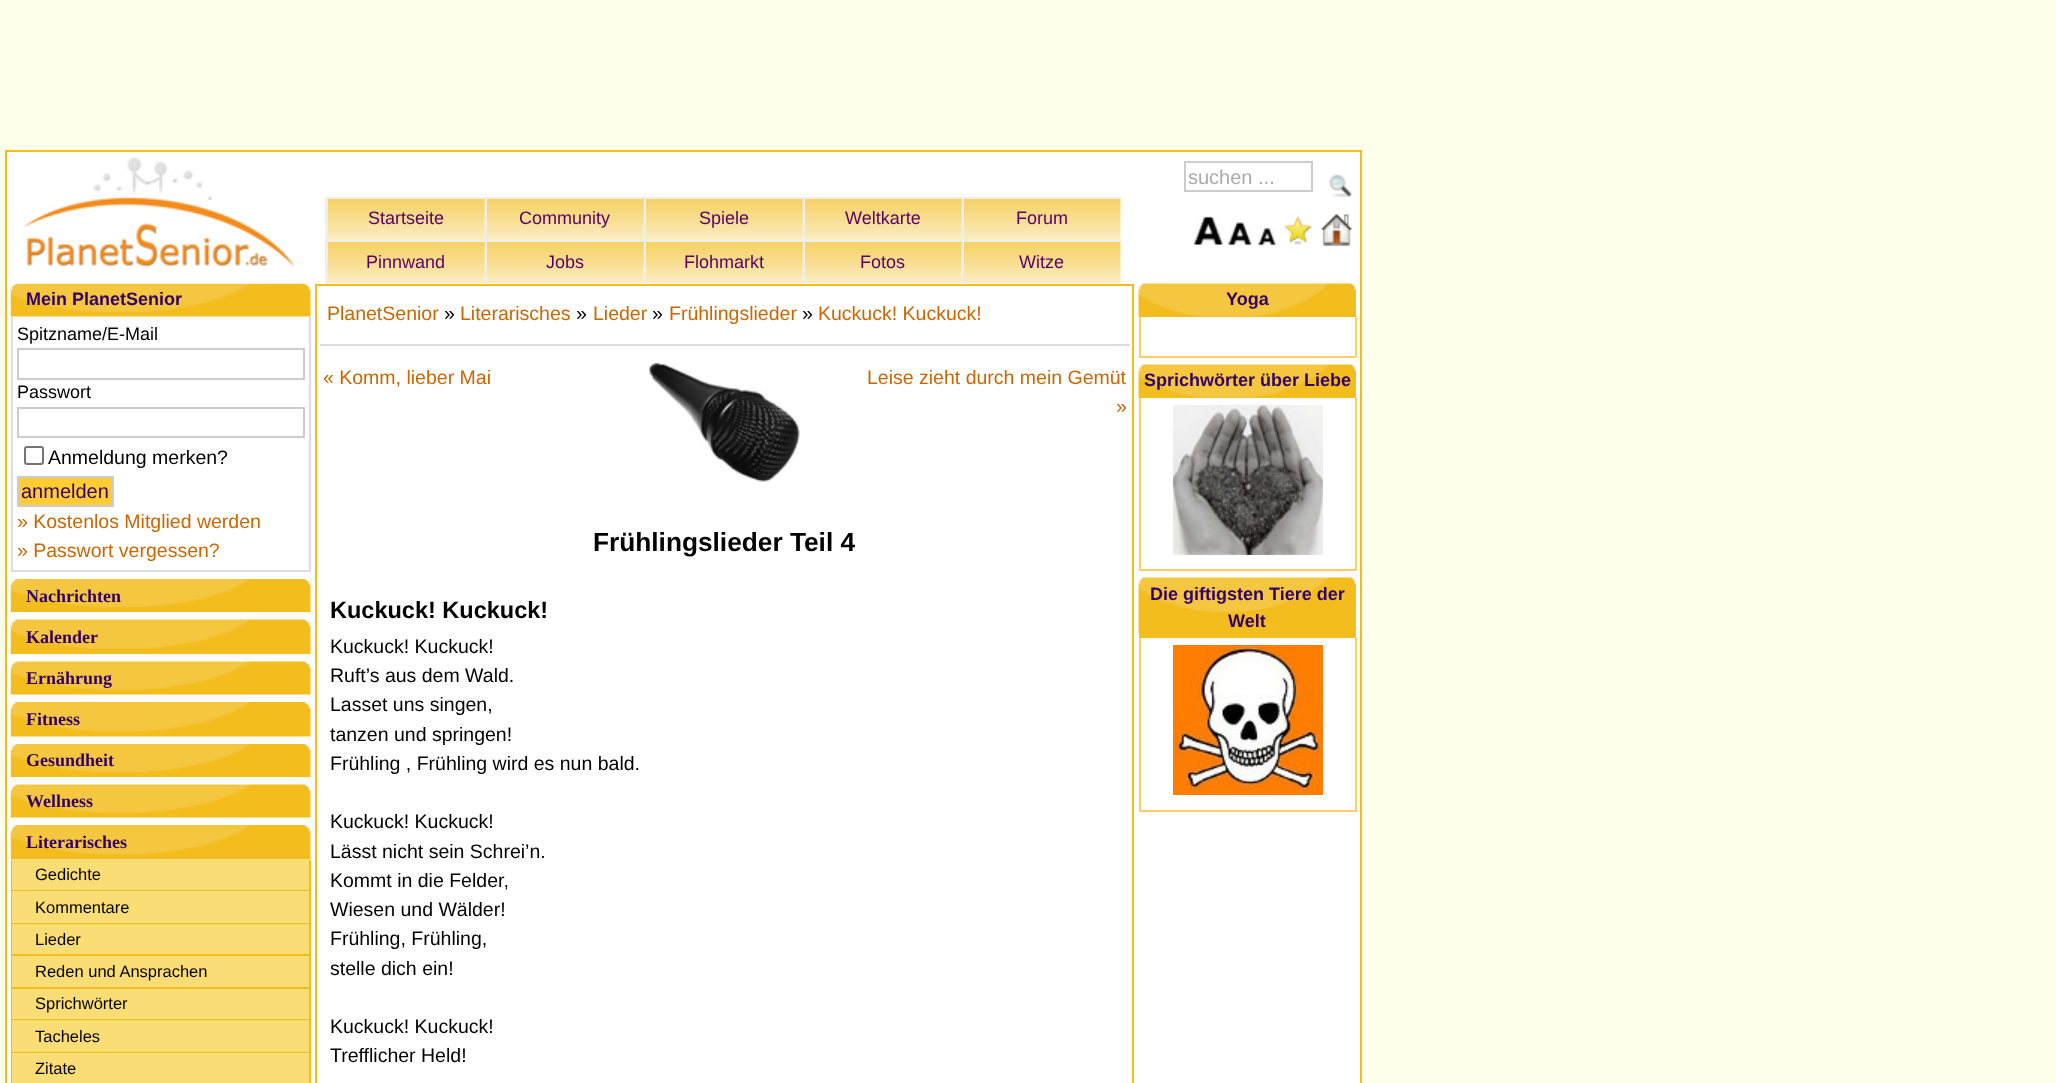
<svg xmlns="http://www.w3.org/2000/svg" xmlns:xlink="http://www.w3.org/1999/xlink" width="2056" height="1083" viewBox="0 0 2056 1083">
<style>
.cls-1{font:20px Liberation Sans;fill:#aaaaaa}
.cls-2{font:18px Liberation Sans;fill:#580066}
.cls-3{font:bold 18px Liberation Sans;fill:#330066}
.cls-4{font:18px Liberation Sans;fill:#000000}
.cls-5{font:19.5px Liberation Sans;fill:#000000}
.cls-6{font:20px Liberation Sans;fill:#330066}
.cls-7{font:19.5px Liberation Sans;fill:#cc6600}
.cls-8{font:bold 18px Liberation Serif;fill:#330066}
.cls-9{font:16.5px Liberation Sans;fill:#000000}
.cls-10{font:bold 26.25px Liberation Sans;fill:#000000}
.cls-11{font:bold 23.5px Liberation Sans;fill:#000000}
</style>
<rect width="100%" height="100%" fill="#ffffea"/>
<rect fill="#ffffff" stroke="#f3bd1e" stroke-width="2" x="6" y="151" width="1355" height="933"/>
<image xlink:href="image0.png" x="23" y="157" width="272" height="111"/>
<rect fill="none" stroke="#cccccc" stroke-width="2" x="1185" y="162" width="127" height="29"/>
<image xlink:href="image1.png" x="1329" y="174" width="23" height="24"/>
<image xlink:href="image2.png" x="325" y="198" width="160" height="42"/>
<rect fill="#eeeeee" x="326" y="197" width="159" height="2"/>
<rect fill="#eeeeee" x="326" y="197" width="2" height="43"/>
<image xlink:href="image3.png" x="484" y="198" width="160" height="42"/>
<rect fill="#eeeeee" x="485" y="197" width="159" height="2"/>
<rect fill="#eeeeee" x="485" y="197" width="2" height="43"/>
<image xlink:href="image3.png" x="643" y="198" width="160" height="42"/>
<rect fill="#eeeeee" x="644" y="197" width="159" height="2"/>
<rect fill="#eeeeee" x="644" y="197" width="2" height="43"/>
<image xlink:href="image3.png" x="802" y="198" width="160" height="42"/>
<rect fill="#eeeeee" x="803" y="197" width="159" height="2"/>
<rect fill="#eeeeee" x="803" y="197" width="2" height="43"/>
<image xlink:href="image3.png" x="961" y="198" width="160" height="42"/>
<rect fill="#eeeeee" x="962" y="197" width="159" height="2"/>
<rect fill="#eeeeee" x="962" y="197" width="2" height="43"/>
<image xlink:href="image4.png" x="325" y="241" width="160" height="43"/>
<rect fill="#eeeeee" x="326" y="240" width="159" height="2"/>
<rect fill="#eeeeee" x="326" y="240" width="2" height="44"/>
<image xlink:href="image5.png" x="484" y="241" width="160" height="43"/>
<rect fill="#eeeeee" x="485" y="240" width="159" height="2"/>
<rect fill="#eeeeee" x="485" y="240" width="2" height="44"/>
<image xlink:href="image6.png" x="643" y="241" width="160" height="43"/>
<rect fill="#eeeeee" x="644" y="240" width="159" height="2"/>
<rect fill="#eeeeee" x="644" y="240" width="2" height="44"/>
<image xlink:href="image7.png" x="802" y="241" width="160" height="43"/>
<rect fill="#eeeeee" x="803" y="240" width="159" height="2"/>
<rect fill="#eeeeee" x="803" y="240" width="2" height="44"/>
<image xlink:href="image8.png" x="961" y="241" width="160" height="43"/>
<rect fill="#eeeeee" x="962" y="240" width="159" height="2"/>
<rect fill="#eeeeee" x="962" y="240" width="2" height="44"/>
<image xlink:href="image9.png" x="1194" y="216" width="29" height="29"/>
<image xlink:href="image10.png" x="1228" y="222" width="24" height="24"/>
<image xlink:href="image11.png" x="1258" y="228" width="18" height="18"/>
<image xlink:href="image12.png" x="1283" y="215" width="29" height="30"/>
<image xlink:href="image13.png" x="1321" y="214" width="31" height="32"/>
<image xlink:href="image14.png" x="10" y="283" width="301" height="34"/>
<rect fill="#dddddd" x="309" y="317" width="2" height="255"/>
<rect fill="#dddddd" x="11" y="317" width="2" height="255"/>
<rect fill="#dddddd" x="12" y="570" width="297" height="2"/>
<rect fill="none" stroke="#cccccc" stroke-width="2" x="18" y="349" width="286" height="30"/>
<rect fill="none" stroke="#cccccc" stroke-width="2" x="18" y="408" width="286" height="29"/>
<rect fill="none" stroke="#767676" stroke-width="2" x="25" y="447" width="18" height="17" rx="2"/>
<rect fill="#ffcc33" stroke="#cccccc" stroke-width="2" x="18" y="477" width="95" height="29"/>
<image xlink:href="image15.png" x="10" y="579" width="301" height="33"/>
<image xlink:href="image16.png" x="10" y="619" width="301" height="35"/>
<image xlink:href="image17.png" x="10" y="661" width="301" height="34"/>
<image xlink:href="image18.png" x="10" y="702" width="301" height="35"/>
<image xlink:href="image15.png" x="10" y="744" width="301" height="33"/>
<image xlink:href="image19.png" x="10" y="784" width="301" height="34"/>
<image xlink:href="image18.png" x="10" y="825" width="301" height="35"/>
<rect fill="#f3bd1e" x="309" y="860" width="2" height="223"/>
<rect fill="#f3bd1e" x="11" y="890" width="300" height="1"/>
<rect fill="#f3bd1e" x="11" y="860" width="2" height="31"/>
<rect fill="#fbdd76" x="12" y="860" width="297" height="30"/>
<rect fill="#f3bd1e" x="11" y="923" width="300" height="1"/>
<rect fill="#f3bd1e" x="11" y="891" width="2" height="33"/>
<rect fill="#fbdd76" x="12" y="891" width="297" height="32"/>
<rect fill="#f3bd1e" x="11" y="954" width="300" height="2"/>
<rect fill="#f3bd1e" x="11" y="924" width="2" height="32"/>
<rect fill="#fbdd76" x="12" y="924" width="297" height="30"/>
<rect fill="#f3bd1e" x="11" y="987" width="300" height="2"/>
<rect fill="#f3bd1e" x="11" y="956" width="2" height="33"/>
<rect fill="#fbdd76" x="12" y="956" width="297" height="31"/>
<rect fill="#f3bd1e" x="11" y="1019" width="300" height="1"/>
<rect fill="#f3bd1e" x="11" y="989" width="2" height="31"/>
<rect fill="#fbdd76" x="12" y="989" width="297" height="30"/>
<rect fill="#f3bd1e" x="11" y="1052" width="300" height="1"/>
<rect fill="#f3bd1e" x="11" y="1020" width="2" height="33"/>
<rect fill="#fbdd76" x="12" y="1020" width="297" height="32"/>
<rect fill="#f3bd1e" x="11" y="1053" width="1" height="30"/>
<rect fill="#fbdd76" x="12" y="1053" width="297" height="30"/>
<rect fill="none" stroke="#f3bd1e" stroke-width="2" x="316" y="285" width="817" height="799"/>
<rect fill="#dddddd" x="320" y="344" width="810" height="2"/>
<image xlink:href="image20.png" x="649" y="363" width="151" height="119"/>
<rect fill="#f3bd1e" x="1139" y="316" width="217" height="1"/>
<image xlink:href="image21.png" x="1138" y="283" width="218" height="34"/>
<rect fill="#ffcc66" x="1355" y="317" width="2" height="40"/>
<rect fill="#ffcc66" x="1139" y="356" width="217" height="2"/>
<rect fill="#ffcc66" x="1139" y="317" width="2" height="40"/>
<rect fill="#f3bd1e" x="1139" y="397" width="217" height="1"/>
<image xlink:href="image21.png" x="1138" y="364" width="218" height="34"/>
<rect fill="#ffcc66" x="1355" y="398" width="2" height="172"/>
<rect fill="#ffcc66" x="1139" y="569" width="217" height="2"/>
<rect fill="#ffcc66" x="1139" y="398" width="2" height="172"/>
<image xlink:href="image22.png" x="1173" y="405" width="150" height="150"/>
<rect fill="#f3bd1e" x="1139" y="633" width="217" height="5"/>
<image xlink:href="image23.png" x="1138" y="577" width="218" height="56"/>
<rect fill="#ffcc66" x="1355" y="638" width="2" height="174"/>
<rect fill="#ffcc66" x="1139" y="810" width="217" height="2"/>
<rect fill="#ffcc66" x="1139" y="638" width="2" height="174"/>
<image xlink:href="image24.png" x="1173" y="645" width="150" height="150"/>
<text class="cls-1" x="1188" y="184">suchen ...</text>
<text class="cls-2" x="368" y="224">Startseite</text>
<text class="cls-2" x="519" y="224">Community</text>
<text class="cls-2" x="699" y="224">Spiele</text>
<text class="cls-2" x="845" y="224">Weltkarte</text>
<text class="cls-2" x="1016" y="224">Forum</text>
<text class="cls-2" x="366" y="268">Pinnwand</text>
<text class="cls-2" x="546" y="268">Jobs</text>
<text class="cls-2" x="684" y="268">Flohmarkt</text>
<text class="cls-2" x="860" y="268">Fotos</text>
<text class="cls-2" x="1019" y="268">Witze</text>
<text class="cls-3" x="26" y="305">Mein PlanetSenior</text>
<text class="cls-4" x="17" y="340">Spitzname/E-Mail</text>
<text class="cls-4" x="17" y="398">Passwort</text>
<text class="cls-5" x="48" y="464">Anmeldung merken?</text>
<text class="cls-6" x="21" y="498">anmelden</text>
<text class="cls-7"><tspan x="17" y="528">» Kostenlos Mitglied werden</tspan><tspan x="17" y="557">» Passwort vergessen?</tspan></text>
<text class="cls-8" x="26" y="602">Nachrichten</text>
<text class="cls-8" x="26" y="643">Kalender</text>
<text class="cls-8" x="26" y="684">Ernährung</text>
<text class="cls-8" x="26" y="725">Fitness</text>
<text class="cls-8" x="26" y="766">Gesundheit</text>
<text class="cls-8" x="26" y="807">Wellness</text>
<text class="cls-8" x="26" y="848">Literarisches</text>
<text class="cls-9" x="35" y="880">Gedichte</text>
<text class="cls-9"><tspan x="35" y="913">Kommentare</tspan><tspan x="35" y="945">Lieder</tspan><tspan x="35" y="977">Reden und Ansprachen</tspan><tspan x="35" y="1009">Sprichwörter</tspan></text>
<text class="cls-9"><tspan x="35" y="1042">Tacheles</tspan><tspan x="35" y="1074">Zitate</tspan></text>
<text class="cls-7" x="327" y="320">PlanetSenior</text>
<text class="cls-5" x="444" y="320">»</text>
<text class="cls-7" x="460" y="320">Literarisches</text>
<text class="cls-5" x="576" y="320">»</text>
<text class="cls-7" x="593" y="320">Lieder</text>
<text class="cls-5" x="652" y="320">»</text>
<text class="cls-7" x="669" y="320">Frühlingslieder</text>
<text class="cls-5" x="802" y="320">»</text>
<text class="cls-7" x="818" y="320">Kuckuck! Kuckuck!</text>
<text class="cls-7" x="323" y="384">« Komm, lieber Mai</text>
<text class="cls-7" x="867" y="384">Leise zieht durch mein Gemüt</text>
<text class="cls-7" x="1116" y="413">»</text>
<text class="cls-10" x="593" y="551">Frühlingslieder Teil 4</text>
<text class="cls-11" x="330" y="618">Kuckuck! Kuckuck!</text>
<text class="cls-5"><tspan x="330" y="653">Kuckuck! Kuckuck!</tspan><tspan x="330" y="682">Ruft’s aus dem Wald.</tspan><tspan x="330" y="711">Lasset uns singen,</tspan><tspan x="330" y="741">tanzen und springen!</tspan><tspan x="330" y="770">Frühling , Frühling wird es nun bald.</tspan></text>
<text class="cls-5"><tspan x="330" y="828">Kuckuck! Kuckuck!</tspan><tspan x="330" y="858">Lässt nicht sein Schrei’n.</tspan><tspan x="330" y="887">Kommt in die Felder,</tspan><tspan x="330" y="916">Wiesen und Wälder!</tspan><tspan x="330" y="945">Frühling, Frühling,</tspan><tspan x="330" y="975">stelle dich ein!</tspan></text>
<text class="cls-5"><tspan x="330" y="1033">Kuckuck! Kuckuck!</tspan><tspan x="330" y="1062">Trefflicher Held!</tspan></text>
<text class="cls-3" x="1226" y="305">Yoga</text>
<text class="cls-3" x="1144" y="386">Sprichwörter über Liebe</text>
<text class="cls-3" x="1150" y="600">Die giftigsten Tiere der</text>
<text class="cls-3" x="1228" y="627">Welt</text>
</svg>
